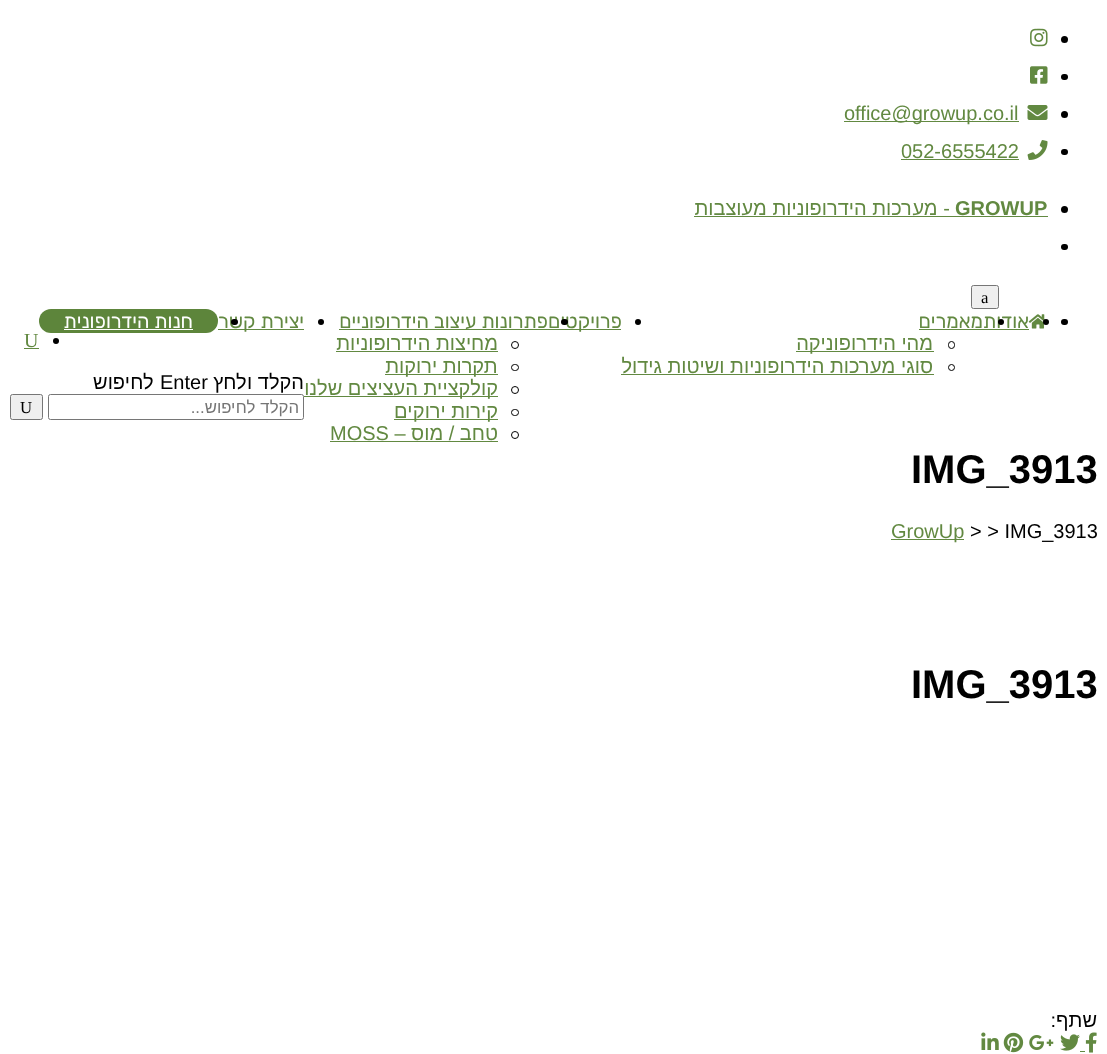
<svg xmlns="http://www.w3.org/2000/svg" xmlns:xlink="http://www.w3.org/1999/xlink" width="1107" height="1054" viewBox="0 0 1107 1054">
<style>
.cls-1{font:20px Arimo;fill:#628941}
.cls-2{font:bold 20px Arimo;fill:#628941}
.cls-3{font:20px Arimo;direction:rtl;fill:#628941}
.cls-4{font:16.75px Liberation Serif;fill:#000000}
.cls-5{font:300 20px Rubik;direction:rtl;fill:#628941}
.cls-6{font:300 20px Rubik;direction:rtl;fill:#ffffff}
.cls-7{font:20px Liberation Serif;fill:#628941}
.cls-8{font:20px Arimo;direction:rtl;fill:#000000}
.cls-9{font:20px Arimo;fill:#000000}
.cls-10{font:16.75px Arimo;direction:rtl;fill:#757575}
.cls-11{font:bold 40px Arimo;fill:#000000}
</style>
<rect width="100%" height="100%" fill="#ffffff"/>
<circle fill="#000000" cx="1064.5" cy="39.5" r="3.5"/>
<image xlink:href="image0.png" x="1030" y="28" width="18" height="19"/>
<rect fill="#000000" x="1061" y="74" width="7" height="6" rx="3"/>
<image xlink:href="image1.png" x="1030" y="66" width="18" height="18"/>
<circle fill="#000000" cx="1064.5" cy="114.5" r="3.5"/>
<image xlink:href="image2.png" x="1027" y="105" width="21" height="15"/>
<rect fill="#628941" x="844" y="121" width="175" height="1"/>
<rect fill="#000000" x="1061" y="149" width="7" height="6" rx="3"/>
<image xlink:href="image3.png" x="1027" y="140" width="21" height="20"/>
<rect fill="#628941" x="901" y="159" width="118" height="1"/>
<circle fill="#000000" cx="1064.5" cy="209.5" r="3.5"/>
<rect fill="#628941" x="694" y="216" width="354" height="1"/>
<rect fill="#000000" x="1061" y="244" width="7" height="6" rx="3"/>
<rect fill="#efefef" stroke="#767676" x="971.5" y="285.5" width="27" height="23" rx="2"/>
<rect fill="#000000" x="1061" y="319" width="7" height="6" rx="3"/>
<image xlink:href="image4.png" x="1028" y="314" width="18" height="15"/>
<circle fill="#000000" cx="1046" cy="322" r="3"/>
<rect fill="#628941" x="919" y="329" width="110" height="1"/>
<rect fill="none" stroke="#000000" x="948.5" y="341.5" width="6" height="7" rx="3"/>
<rect fill="#628941" x="796" y="351" width="138" height="1"/>
<circle fill="none" stroke="#000000" cx="951.5" cy="367.5" r="3"/>
<rect fill="#628941" x="621" y="374" width="313" height="1"/>
<circle fill="#000000" cx="638" cy="322" r="3"/>
<rect fill="#628941" x="339" y="329" width="282" height="1"/>
<circle fill="none" stroke="#000000" cx="515" cy="345" r="3.5"/>
<rect fill="#628941" x="336" y="351" width="162" height="1"/>
<rect fill="none" stroke="#000000" x="511.5" y="364.5" width="7" height="6" rx="3"/>
<rect fill="#628941" x="385" y="374" width="113" height="1"/>
<circle fill="none" stroke="#000000" cx="515" cy="390" r="3.5"/>
<rect fill="#628941" x="304" y="396" width="194" height="1"/>
<rect fill="none" stroke="#000000" x="511.5" y="409.5" width="7" height="6" rx="3"/>
<rect fill="#628941" x="394" y="419" width="104" height="1"/>
<circle fill="none" stroke="#000000" cx="515" cy="435" r="3.5"/>
<rect fill="#628941" x="330" y="441" width="168" height="1"/>
<circle fill="#000000" cx="321" cy="322" r="3"/>
<rect fill="#628941" x="218" y="329" width="86" height="1"/>
<rect fill="#5d853b" x="39" y="309" width="179" height="24" rx="12"/>
<rect fill="#ffffff" x="64" y="329" width="129" height="1"/>
<circle fill="#000000" cx="56" cy="341" r="3"/>
<rect fill="#628941" x="24" y="348" width="15" height="1"/>
<rect fill="none" stroke="#767676" x="48.5" y="394.5" width="255" height="25" rx="2"/>
<rect fill="#efefef" stroke="#767676" x="10.5" y="394.5" width="32" height="25" rx="2"/>
<rect fill="#628941" x="891" y="539" width="73" height="1"/>
<image xlink:href="image5.png" x="1085" y="1032" width="12" height="21"/>
<rect fill="#628941" x="1080" y="1051" width="5" height="1"/>
<image xlink:href="image6.png" x="1060" y="1034" width="20" height="17"/>
<image xlink:href="image7.png" x="1029" y="1035" width="25" height="15"/>
<image xlink:href="image8.png" x="1003" y="1032" width="21" height="21"/>
<image xlink:href="image9.png" x="981" y="1032" width="18" height="18"/>
<text class="cls-1" x="844" y="120">office@growup.co.il</text>
<text class="cls-1" x="901" y="158">052-6555422</text>
<text class="cls-2" x="955" y="215">GROWUP</text>
<text class="cls-3" x="950" y="215">- מערכות הידרופוניות מעוצבות</text>
<text class="cls-4" x="981" y="303">a</text>
<text class="cls-5" x="1029" y="328">אודות</text>
<circle fill="#000000" cx="1001" cy="322" r="3"/>
<text class="cls-5" x="983" y="328">מאמרים</text>
<text class="cls-3"><tspan x="933" y="350">מהי הידרופוניקה</tspan><tspan x="933" y="373">סוגי מערכות הידרופוניות ושיטות גידול</tspan></text>
<text class="cls-5" x="622" y="328">פרויקטים</text>
<rect fill="#000000" x="561" y="319" width="7" height="6" rx="3"/>
<text class="cls-5" x="548" y="328">פתרונות עיצוב הידרופוניים</text>
<text class="cls-3"><tspan x="498" y="350">מחיצות הידרופוניות</tspan><tspan x="498" y="373">תקרות ירוקות</tspan><tspan x="498" y="395">קולקציית העציצים שלנו</tspan><tspan x="498" y="418">קירות ירוקים</tspan><tspan x="498" y="440">טחב / מוס –</tspan></text>
<text class="cls-1" x="330" y="440">MOSS</text>
<text class="cls-5" x="304" y="328">יצירת קשר</text>
<rect fill="#000000" x="231" y="319" width="7" height="6" rx="3"/>
<text class="cls-6" x="193" y="328">חנות הידרופונית</text>
<text class="cls-7" x="24" y="347">U</text>
<text class="cls-8" x="304" y="389">הקלד ולחץ</text>
<text class="cls-9" x="160" y="389">Enter</text>
<text class="cls-8" x="154" y="389">לחיפוש</text>
<text class="cls-10" x="299" y="413">הקלד לחיפוש...</text>
<text class="cls-4" x="20" y="413">U</text>
<text class="cls-11" x="911" y="483">IMG_3913</text>
<text class="cls-9" x="970" y="538">&gt; &gt; IMG_3913</text>
<text class="cls-1" x="891" y="538">GrowUp</text>
<text class="cls-11" x="911" y="698">IMG_3913</text>
<text class="cls-8" x="1097" y="1027">שתף:</text>
</svg>
